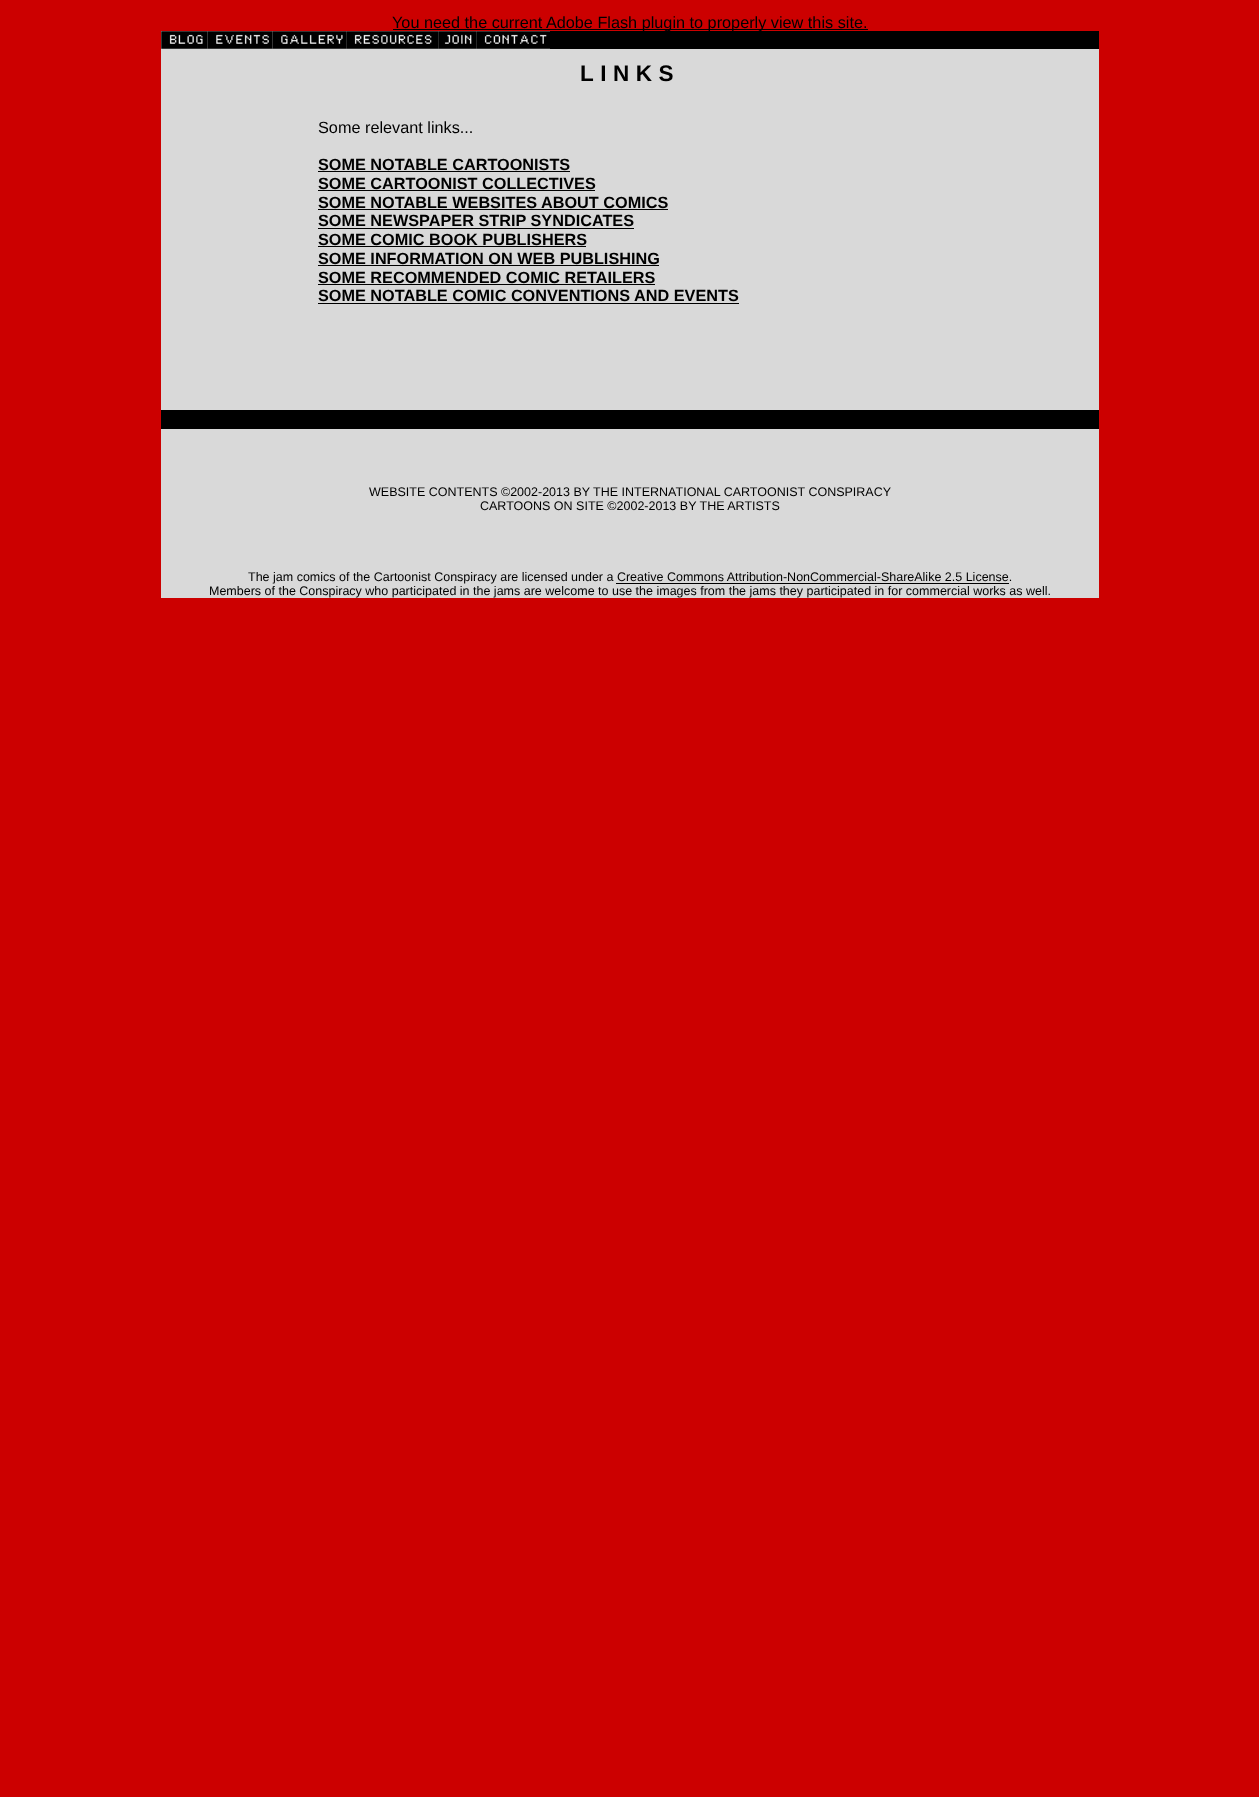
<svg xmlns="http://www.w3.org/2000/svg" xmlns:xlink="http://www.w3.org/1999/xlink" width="1259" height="1797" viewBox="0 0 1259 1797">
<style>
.cls-1{font:16.25px Liberation Sans;fill:#000000}
.cls-2{font:bold 22.5px Liberation Sans;letter-spacing:6.5px;fill:#000000}
.cls-3{font:bold 16.25px Liberation Sans;fill:#000000}
.cls-4{font:12.5px Liberation Sans;fill:#000000}
</style>
<rect width="100%" height="100%" fill="#cc0000"/>
<rect fill="#000000" x="393" y="29" width="475" height="1"/>
<rect fill="#d9d9d9" x="161" y="31" width="938" height="567"/>
<image xlink:href="image0.png" x="161" y="31" width="47" height="18"/>
<image xlink:href="image1.png" x="207" y="31" width="66" height="18"/>
<image xlink:href="image2.png" x="272" y="31" width="75" height="18"/>
<rect fill="#000000" x="550" y="31" width="549" height="18"/>
<rect fill="#000000" x="318" y="171" width="252" height="1"/>
<rect fill="#000000" x="318" y="190" width="277" height="1"/>
<rect fill="#000000" x="318" y="209" width="350" height="1"/>
<rect fill="#000000" x="318" y="228" width="316" height="1"/>
<rect fill="#000000" x="318" y="246" width="268" height="1"/>
<rect fill="#000000" x="318" y="265" width="341" height="1"/>
<rect fill="#000000" x="318" y="284" width="337" height="1"/>
<rect fill="#000000" x="318" y="303" width="421" height="1"/>
<rect fill="#000000" x="161" y="410" width="938" height="19"/>
<rect fill="#000000" x="616" y="583" width="393" height="1"/>
<text class="cls-1" x="392" y="28">You need the current Adobe Flash plugin to properly view this site.</text>
<image xlink:href="image3.png" x="346" y="31" width="93" height="18"/>
<image xlink:href="image4.png" x="438" y="31" width="39" height="18"/>
<image xlink:href="image5.png" x="476" y="31" width="74" height="18"/>
<text class="cls-2" x="580" y="81">LINKS</text>
<text class="cls-1" x="318" y="133">Some relevant links...</text>
<text class="cls-3"><tspan x="318" y="170">SOME NOTABLE CARTOONISTS</tspan><tspan x="318" y="189">SOME CARTOONIST COLLECTIVES</tspan><tspan x="318" y="208">SOME NOTABLE WEBSITES ABOUT COMICS</tspan><tspan x="318" y="226">SOME NEWSPAPER STRIP SYNDICATES</tspan><tspan x="318" y="245">SOME COMIC BOOK PUBLISHERS</tspan><tspan x="318" y="264">SOME INFORMATION ON WEB PUBLISHING</tspan><tspan x="318" y="283">SOME RECOMMENDED COMIC RETAILERS</tspan><tspan x="318" y="301">SOME NOTABLE COMIC CONVENTIONS AND EVENTS</tspan></text>
<text class="cls-4" x="369" y="496">WEBSITE CONTENTS ©2002-2013 BY THE INTERNATIONAL CARTOONIST CONSPIRACY</text>
<text class="cls-4" x="480" y="510">CARTOONS ON SITE ©2002-2013 BY THE ARTISTS</text>
<text class="cls-4" x="248" y="581">The jam comics of the Cartoonist Conspiracy are licensed under a Creative Commons Attribution-NonCommercial-ShareAlike 2.5 License.</text>
<text class="cls-4" x="209" y="595">Members of the Conspiracy who participated in the jams are welcome to use the images from the jams they participated in for commercial works as well.</text>
</svg>
